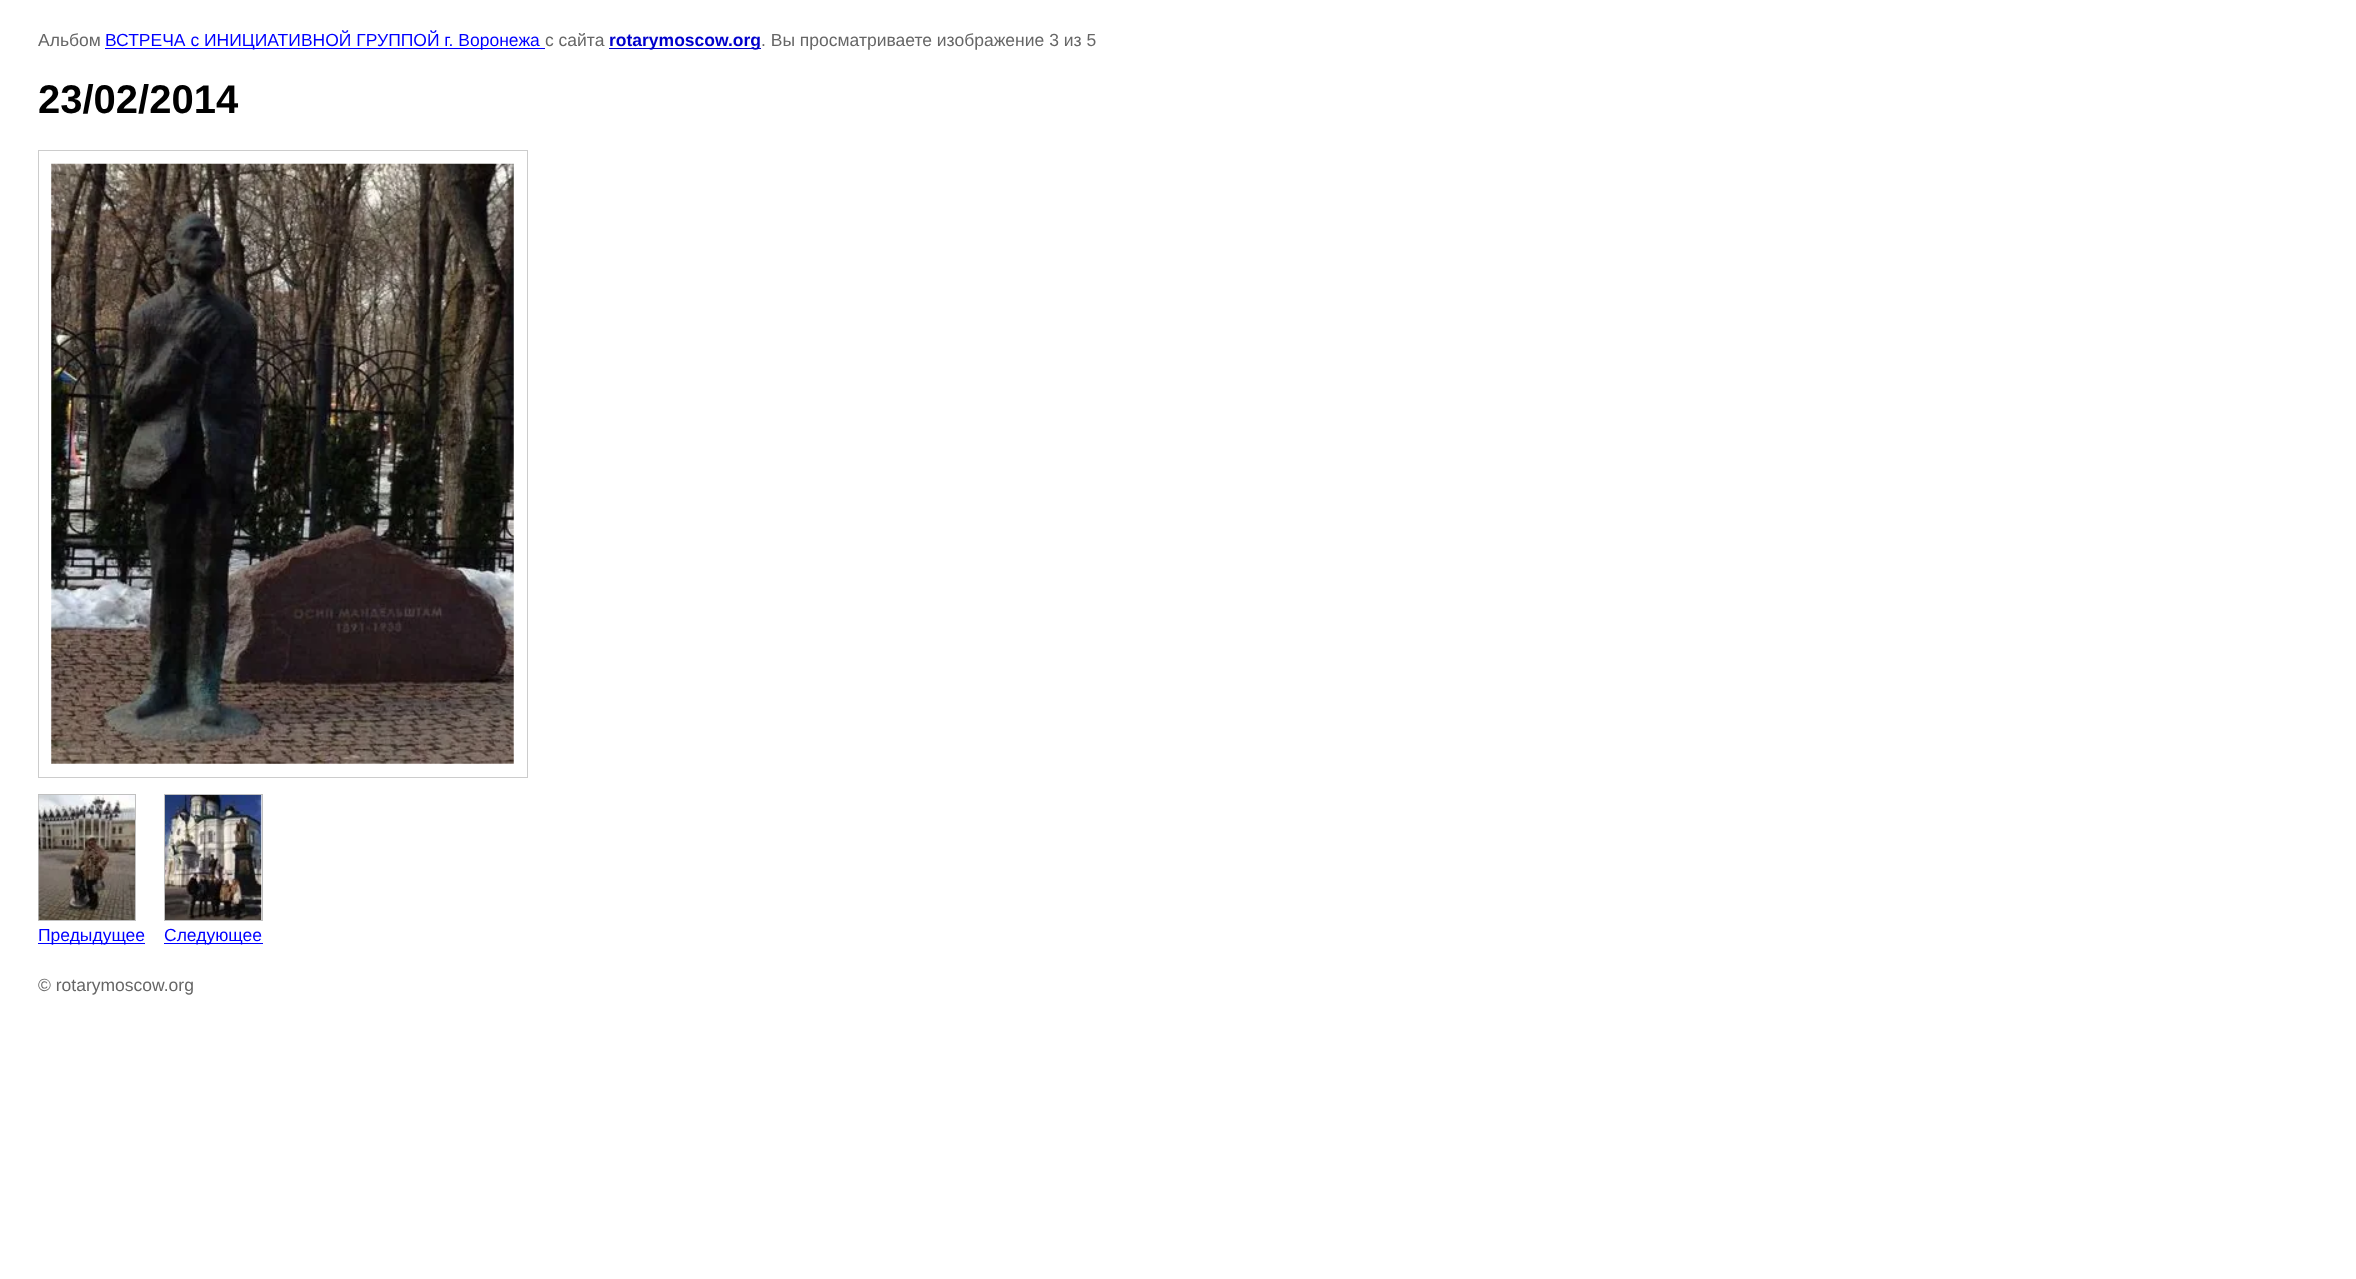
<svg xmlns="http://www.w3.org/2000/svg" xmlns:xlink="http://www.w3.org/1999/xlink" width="2356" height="1279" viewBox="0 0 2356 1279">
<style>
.cls-1{font:17.5px Liberation Sans;fill:#666666}
.cls-2{font:17.5px Liberation Sans;fill:#0000ff}
.cls-3{font:bold 17.5px Liberation Sans;fill:#0000cc}
.cls-4{font:bold 40px Liberation Sans;fill:#000000}
</style>
<rect width="100%" height="100%" fill="#ffffff"/>
<rect fill="#0000ff" x="105" y="48" width="440" height="1"/>
<rect fill="#0000cc" x="609" y="48" width="152" height="1"/>
<rect fill="none" stroke="#cccccc" x="38.5" y="150.5" width="489" height="627"/>
<image xlink:href="image0.png" x="51" y="163" width="463" height="601"/>
<rect fill="none" stroke="#c0c0c0" x="38.5" y="794.5" width="97" height="126"/>
<image xlink:href="image1.png" x="38" y="795" width="97" height="125"/>
<rect fill="#0000ff" x="38" y="943" width="107" height="1"/>
<rect fill="none" stroke="#c0c0c0" x="164.5" y="794.5" width="98" height="126"/>
<image xlink:href="image2.png" x="165" y="795" width="97" height="125"/>
<rect fill="#0000ff" x="164" y="943" width="99" height="1"/>
<text class="cls-1" x="38" y="46">Альбом</text>
<text class="cls-2" x="105" y="46">ВСТРЕЧА с ИНИЦИАТИВНОЙ ГРУППОЙ г. Воронежа</text>
<text class="cls-1" x="545" y="46">с сайта</text>
<text class="cls-3" x="609" y="46">rotarymoscow.org</text>
<text class="cls-1" x="761" y="46">. Вы просматриваете изображение 3 из 5</text>
<text class="cls-4" x="38" y="113">23/02/2014</text>
<text class="cls-2" x="38" y="941">Предыдущее</text>
<text class="cls-2" x="164" y="941">Следующее</text>
<text class="cls-1" x="38" y="991">© rotarymoscow.org</text>
</svg>
